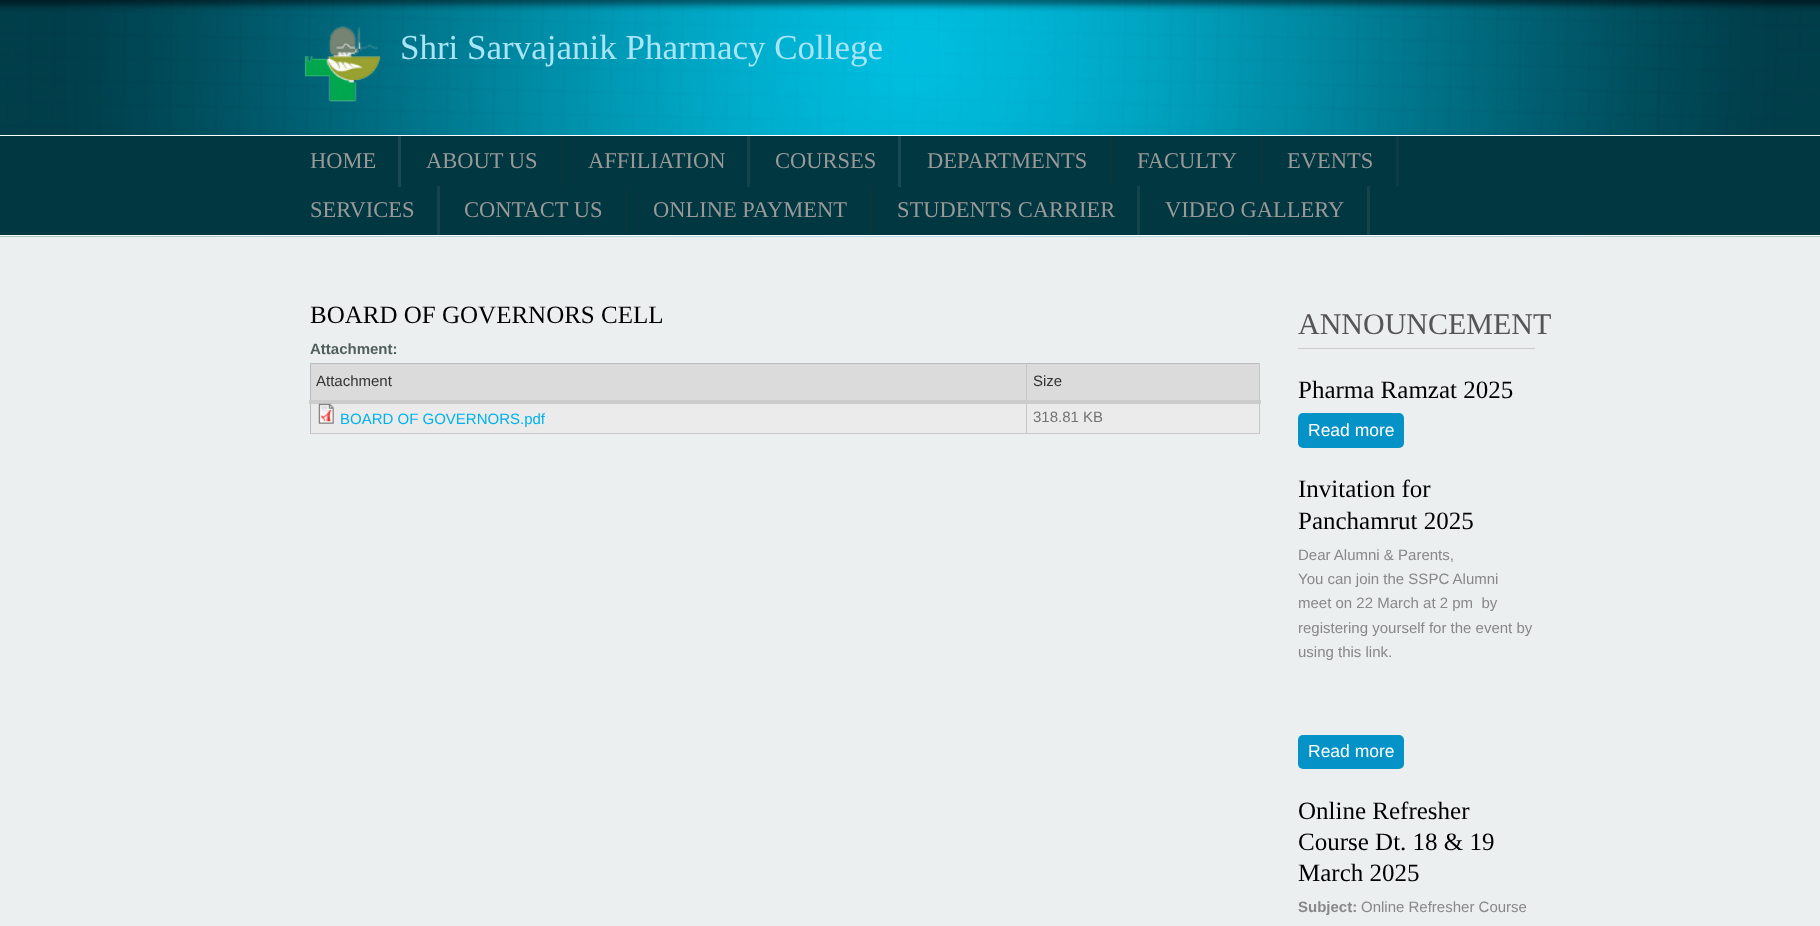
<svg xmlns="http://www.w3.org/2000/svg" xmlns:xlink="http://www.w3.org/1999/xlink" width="1820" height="926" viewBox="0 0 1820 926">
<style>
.cls-1{font:35px Liberation Serif;fill:#a8e5f8}
.cls-2{font:22.5px Liberation Serif;fill:#999999}
.cls-3{font:25px Liberation Serif;fill:#000000}
.cls-4{font:bold 15px Liberation Sans;fill:#515f5c}
.cls-5{font:15px Liberation Sans;fill:#333333}
.cls-6{font:15px Liberation Sans;fill:#00b1ec}
.cls-7{font:15px Liberation Sans;fill:#747474}
.cls-8{font:30px Liberation Serif;fill:#555555}
.cls-9{font:17.5px Liberation Sans;fill:#ffffff}
.cls-10{font:15px Liberation Sans;fill:#888888}
.cls-11{font:bold 15px Liberation Sans;fill:#888888}
</style>
<rect width="100%" height="100%" fill="#ebeff0"/>
<image xlink:href="image0.png" x="0" y="0" width="1820" height="237"/>
<image xlink:href="image1.png" x="304" y="26" width="77" height="76"/>
<rect fill="#003741" x="0" y="136" width="1820" height="99"/>
<rect fill="#ffffff" x="0" y="135" width="1820" height="1"/>
<rect fill="#ffffff" x="0" y="235" width="1820" height="1"/>
<rect fill="#194a53" x="398" y="136" width="3" height="51"/>
<rect fill="#08363e" x="560" y="136" width="3" height="51"/>
<rect fill="#14434c" x="747" y="136" width="3" height="51"/>
<rect fill="#194a53" x="898" y="136" width="3" height="51"/>
<rect fill="#08363e" x="1110" y="136" width="3" height="51"/>
<rect fill="#08363e" x="1260" y="136" width="3" height="51"/>
<rect fill="#0d3c44" x="1396" y="136" width="3" height="50"/>
<rect fill="#14434c" x="437" y="186" width="3" height="49"/>
<rect fill="#08363e" x="625" y="186" width="3" height="49"/>
<rect fill="#08363e" x="870" y="186" width="3" height="49"/>
<rect fill="#14434c" x="1137" y="186" width="3" height="49"/>
<rect fill="#14434c" x="1367" y="186" width="3" height="49"/>
<rect fill="#bbbbbb" x="310" y="363" width="950" height="1"/>
<rect fill="#bbbbbb" x="310" y="363" width="1" height="71"/>
<rect fill="#dbdbdb" x="311" y="364" width="948" height="36"/>
<rect fill="#ebebeb" x="311" y="404" width="948" height="29"/>
<rect fill="#c8c7c7" x="1259" y="363" width="1" height="71"/>
<rect fill="#c8c7c7" x="1026" y="433" width="234" height="1"/>
<rect fill="#c8c7c7" x="1026" y="363" width="1" height="71"/>
<rect fill="#cccccc" x="309" y="400" width="952" height="4"/>
<rect fill="#c8c7c7" x="310" y="433" width="718" height="1"/>
<image xlink:href="image2.png" x="318" y="403" width="16" height="21"/>
<rect fill="#cccccc" x="1298" y="348" width="237" height="1"/>
<rect fill="#0593c7" x="1298" y="413" width="106" height="35" rx="5"/>
<rect fill="#0593c7" x="1298" y="735" width="106" height="34" rx="5"/>
<text class="cls-1" x="400" y="59">Shri Sarvajanik Pharmacy College</text>
<text class="cls-2" x="310" y="168">HOME</text>
<text class="cls-2" x="426" y="168">ABOUT US</text>
<text class="cls-2" x="588" y="168">AFFILIATION</text>
<text class="cls-2" x="775" y="168">COURSES</text>
<text class="cls-2" x="927" y="168">DEPARTMENTS</text>
<text class="cls-2" x="1137" y="168">FACULTY</text>
<text class="cls-2" x="1287" y="168">EVENTS</text>
<text class="cls-2" x="310" y="217">SERVICES</text>
<text class="cls-2" x="464" y="217">CONTACT US</text>
<text class="cls-2" x="653" y="217">ONLINE PAYMENT</text>
<text class="cls-2" x="897" y="217">STUDENTS CARRIER</text>
<text class="cls-2" x="1165" y="217">VIDEO GALLERY</text>
<text class="cls-3" x="310" y="323">BOARD OF GOVERNORS CELL</text>
<text class="cls-4" x="310" y="354">Attachment:</text>
<text class="cls-5" x="316" y="386">Attachment</text>
<text class="cls-5" x="1033" y="386">Size</text>
<text class="cls-6" x="340" y="424">BOARD OF GOVERNORS.pdf</text>
<text class="cls-7" x="1033" y="422">318.81 KB</text>
<text class="cls-8" x="1298" y="334">ANNOUNCEMENT</text>
<text class="cls-3" x="1298" y="398">Pharma Ramzat 2025</text>
<text class="cls-9" x="1308" y="436">Read more</text>
<text class="cls-3"><tspan x="1298" y="497">Invitation for</tspan><tspan x="1298" y="529">Panchamrut 2025</tspan></text>
<text class="cls-10" xml:space="preserve"><tspan x="1298" y="560">Dear Alumni &amp; Parents,</tspan><tspan x="1298" y="584">You can join the SSPC Alumni</tspan><tspan x="1298" y="608">meet on 22 March at 2 pm  by</tspan><tspan x="1298" y="633">registering yourself for the event by</tspan><tspan x="1298" y="657">using this link.</tspan></text>
<text class="cls-9" x="1308" y="757">Read more</text>
<text class="cls-3"><tspan x="1298" y="819">Online Refresher</tspan><tspan x="1298" y="850">Course Dt. 18 &amp; 19</tspan><tspan x="1298" y="881">March 2025</tspan></text>
<text class="cls-11" x="1298" y="912">Subject:</text>
<text class="cls-10" x="1361" y="912">Online Refresher Course</text>
</svg>
